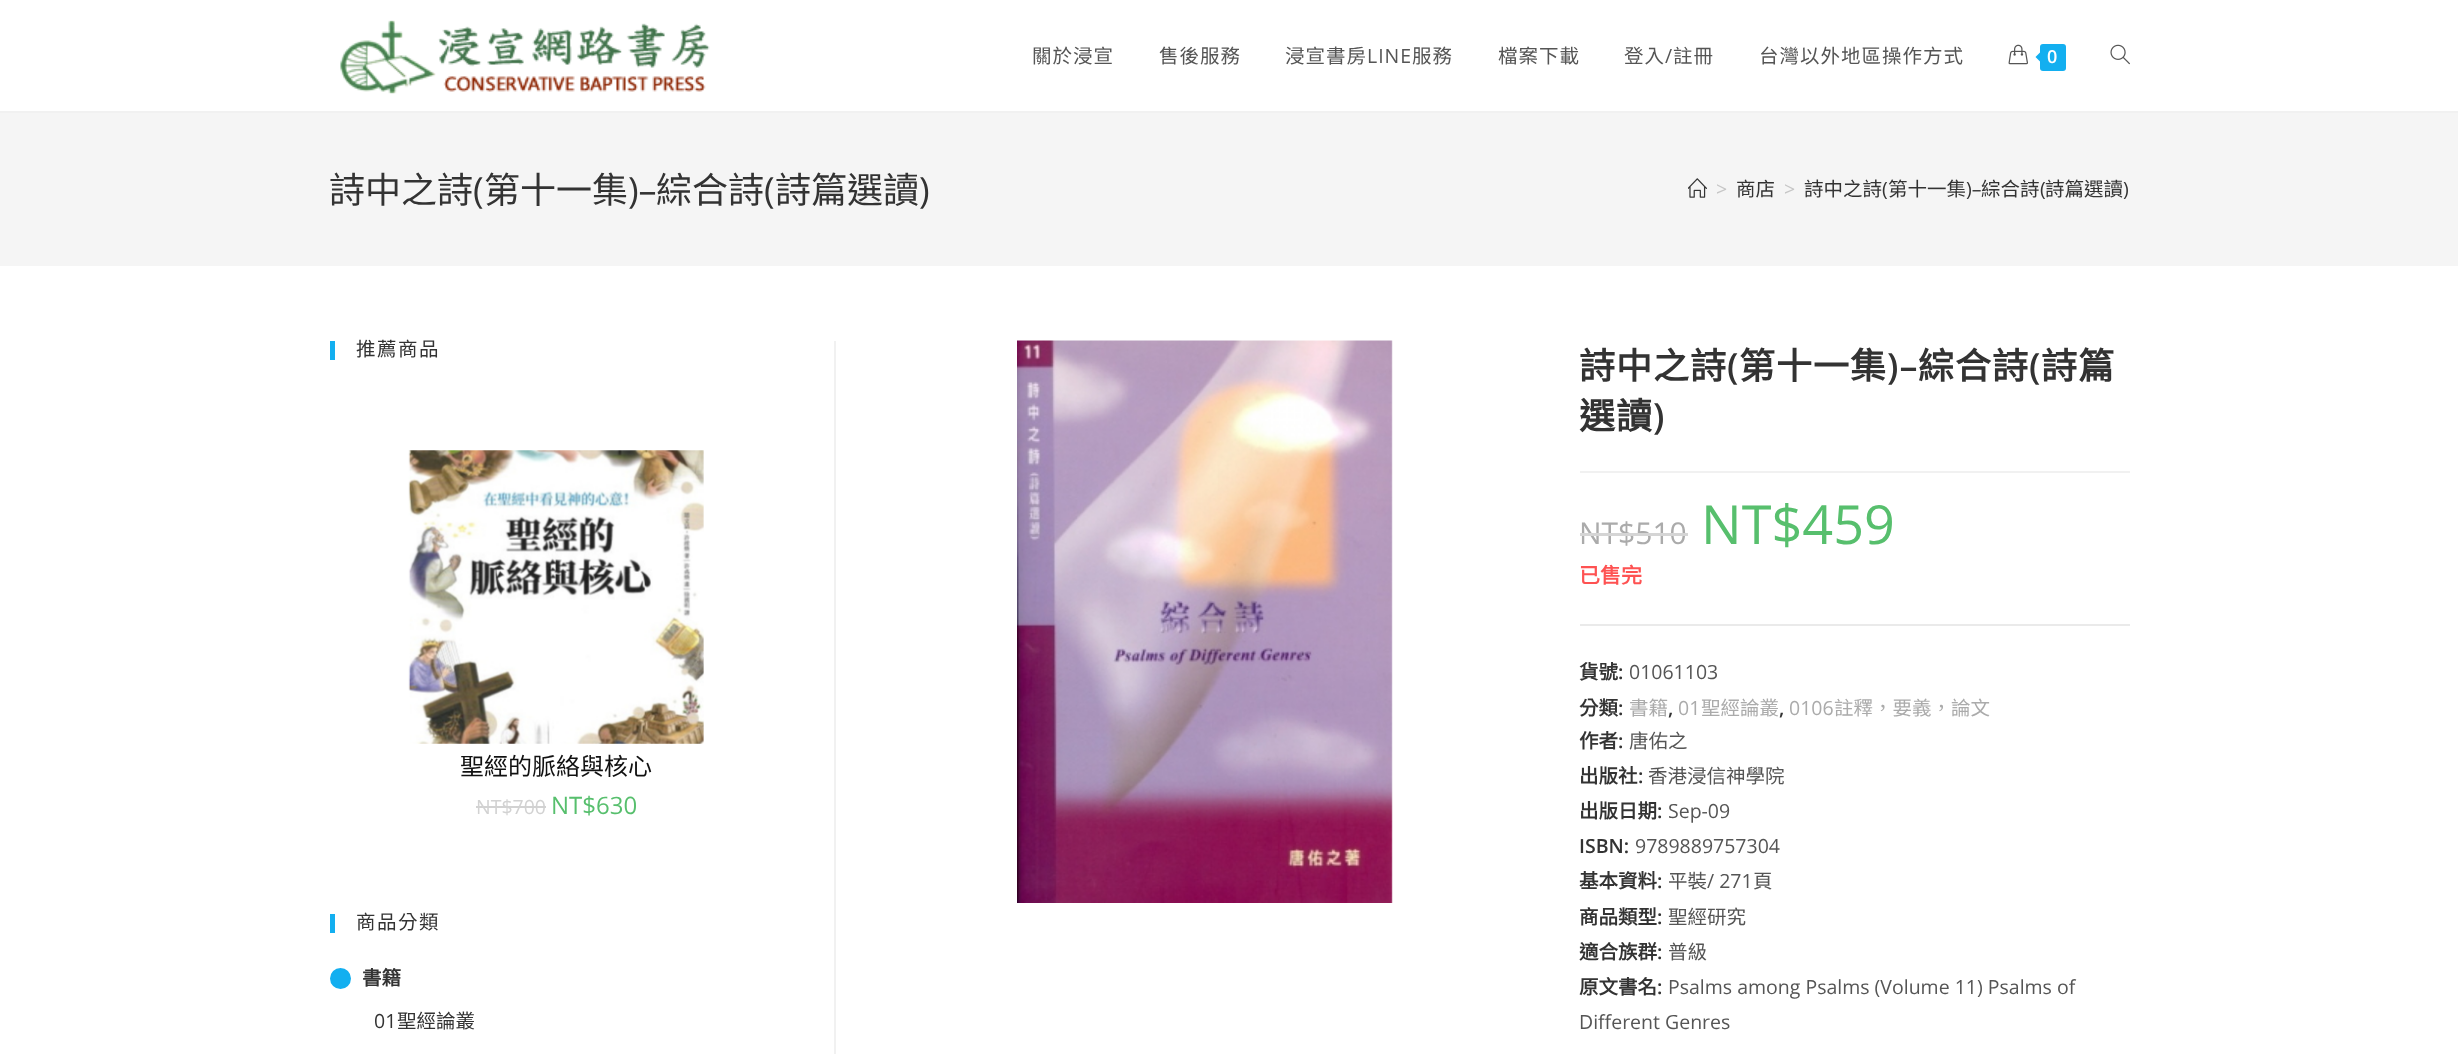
<svg xmlns="http://www.w3.org/2000/svg" xmlns:xlink="http://www.w3.org/1999/xlink" width="2458" height="1054" viewBox="0 0 2458 1054">
<style>
.cls-1{font:19.5px Noto Sans CJK TC;letter-spacing:1px;fill:#555555}
.cls-2{font:19.5px Open Sans;letter-spacing:1px;fill:#555555}
.cls-3{font:600 18px Open Sans;fill:#ffffff}
.cls-4{font:36px Noto Sans CJK TC;fill:#333333}
.cls-5{font:36px Open Sans;fill:#333333}
.cls-6{font:19.5px Open Sans;fill:#c6c6c6}
.cls-7{font:19.5px Noto Sans CJK TC;fill:#333333}
.cls-8{font:19.5px Open Sans;fill:#333333}
.cls-9{font:19.5px Noto Sans CJK TC;letter-spacing:1.5px;fill:#333333}
.cls-10{font:24px Noto Sans CJK TC;fill:#111111}
.cls-11{font:19.5px Open Sans;fill:#d2d2d2}
.cls-12{font:24px Open Sans;fill:#57bf6d}
.cls-13{font:bold 19.5px Noto Sans CJK TC;fill:#333333}
.cls-14{font:bold 36px Noto Sans CJK TC;letter-spacing:1px;fill:#333333}
.cls-15{font:600 36px Open Sans;letter-spacing:1px;fill:#333333}
.cls-16{font:30px Open Sans;fill:#ababab}
.cls-17{font:54px Open Sans;fill:#57bf6d}
.cls-18{font:bold 21px Noto Sans CJK TC;fill:#fe5252}
.cls-19{font:600 19.5px Open Sans;fill:#333333}
.cls-20{font:19.5px Open Sans;fill:#555555}
.cls-21{font:19.5px Noto Sans CJK TC;fill:#ababab}
.cls-22{font:19.5px Open Sans;fill:#ababab}
.cls-23{font:19.5px Noto Sans CJK TC;fill:#555555}
</style>
<rect width="100%" height="100%" fill="#ffffff"/>
<rect fill="#f1f1f1" x="0" y="111" width="2458" height="2"/>
<image xlink:href="image0.png" x="340" y="20" width="370" height="74"/>
<image xlink:href="image1.png" x="2008" y="44" width="20" height="21"/>
<rect fill="#13aff0" x="2040" y="44" width="26" height="27" rx="3"/>
<path fill="#13aff0" d="M2043 49.5V64.5L2035.5 57Z"/>
<image xlink:href="image2.png" x="2110" y="44" width="20" height="21"/>
<rect fill="#f5f5f5" x="0" y="113" width="2458" height="153"/>
<image xlink:href="image3.png" x="1688" y="178" width="19" height="20"/>
<rect fill="#13aff0" x="330" y="341" width="5" height="19"/>
<image xlink:href="image4.png" x="408" y="450" width="296" height="294"/>
<rect fill="#d2d2d2" x="476" y="806" width="70" height="2"/>
<rect fill="#13aff0" x="330" y="914" width="5" height="19"/>
<circle fill="#13aff0" stroke="#13aff0" stroke-width="2" cx="340.5" cy="978.5" r="9.5"/>
<rect fill="#f1f1f1" x="834" y="341" width="2" height="713"/>
<image xlink:href="image5.png" x="1017" y="340" width="376" height="563"/>
<rect fill="#f1f1f1" x="1580" y="471" width="550" height="2"/>
<rect fill="#eaeaea" x="1580" y="624" width="550" height="2"/>
<text class="cls-1" x="1032" y="63">關於浸宣</text>
<text class="cls-1" x="1159" y="63">售後服務</text>
<text class="cls-1" x="1285" y="63">浸宣書房</text>
<text class="cls-2" x="1367" y="63">LINE</text>
<text class="cls-1" x="1412" y="63">服務</text>
<text class="cls-1" x="1498" y="63">檔案下載</text>
<text class="cls-1" x="1624" y="63">登入</text>
<text class="cls-2" x="1665" y="63">/</text>
<text class="cls-1" x="1673" y="63">註冊</text>
<text class="cls-1" x="1759" y="63">台灣以外地區操作方式</text>
<text class="cls-3" x="2047" y="63">0</text>
<text class="cls-4" x="329" y="203">詩中之詩</text>
<text class="cls-5" x="473" y="203">(</text>
<text class="cls-4" x="484" y="203">第十一集</text>
<text class="cls-5" x="628" y="203">)–</text>
<text class="cls-4" x="656" y="203">綜合詩</text>
<text class="cls-5" x="764" y="203">(</text>
<text class="cls-4" x="775" y="203">詩篇選讀</text>
<text class="cls-5" x="919" y="203">)</text>
<text class="cls-6" x="1716" y="196">&gt;</text>
<text class="cls-7" x="1736" y="196">商店</text>
<text class="cls-6" x="1784" y="196">&gt;</text>
<text class="cls-7" x="1804" y="196">詩中之詩</text>
<text class="cls-8" x="1882" y="196">(</text>
<text class="cls-7" x="1888" y="196">第十一集</text>
<text class="cls-8" x="1966" y="196">)–</text>
<text class="cls-7" x="1981" y="196">綜合詩</text>
<text class="cls-8" x="2040" y="196">(</text>
<text class="cls-7" x="2045" y="196">詩篇選讀</text>
<text class="cls-8" x="2123" y="196">)</text>
<text class="cls-9" x="356" y="356">推薦商品</text>
<text class="cls-10" x="460" y="775">聖經的脈絡與核心</text>
<text class="cls-11" x="476" y="814">NT$700</text>
<text class="cls-12" x="551" y="814">NT$630</text>
<text class="cls-9" x="356" y="929">商品分類</text>
<text class="cls-13" x="362" y="985">書籍</text>
<text class="cls-8" x="374" y="1028">01</text>
<text class="cls-7" x="397" y="1028">聖經論叢</text>
<text class="cls-14" x="1579" y="379">詩中之詩</text>
<text class="cls-15" x="1727" y="379">(</text>
<text class="cls-14" x="1739" y="379">第十一集</text>
<text class="cls-15" x="1887" y="379">)–</text>
<text class="cls-14" x="1918" y="379">綜合詩</text>
<text class="cls-15" x="2029" y="379">(</text>
<text class="cls-14" x="2041" y="379">詩篇</text>
<text class="cls-14" x="1579" y="429">選讀</text>
<text class="cls-15" x="1653" y="429">)</text>
<text class="cls-16" x="1579" y="544">NT$510</text>
<rect fill="#d5d5d5" x="1580" y="533" width="108" height="3"/>
<text class="cls-17" x="1701" y="544">NT$459</text>
<text class="cls-18" x="1579" y="583">已售完</text>
<text class="cls-13" x="1579" y="679">貨號</text>
<text class="cls-19" x="1618" y="679">:</text>
<text class="cls-20" x="1629" y="679">01061103</text>
<text class="cls-13" x="1579" y="715">分類</text>
<text class="cls-19" x="1618" y="715">:</text>
<text class="cls-21" x="1629" y="715">書籍</text>
<text class="cls-19" x="1668" y="715">,</text>
<text class="cls-22" x="1678" y="715">01</text>
<text class="cls-21" x="1701" y="715">聖經論叢</text>
<text class="cls-19" x="1779" y="715">,</text>
<text class="cls-22" x="1789" y="715">0106</text>
<text class="cls-21" x="1834" y="715">註釋，要義，論文</text>
<text class="cls-13" x="1579" y="748">作者</text>
<text class="cls-19" x="1618" y="748">:</text>
<text class="cls-23" x="1629" y="748">唐佑之</text>
<text class="cls-13" x="1579" y="783">出版社</text>
<text class="cls-19" x="1638" y="783">:</text>
<text class="cls-23" x="1648" y="783">香港浸信神學院</text>
<text class="cls-13" x="1579" y="818">出版日期</text>
<text class="cls-19" x="1657" y="818">:</text>
<text class="cls-20" x="1668" y="818">Sep-09</text>
<text class="cls-19" x="1579" y="853">ISBN:</text>
<text class="cls-20" x="1635" y="853">9789889757304</text>
<text class="cls-13" x="1579" y="888">基本資料</text>
<text class="cls-19" x="1657" y="888">:</text>
<text class="cls-23" x="1668" y="888">平裝</text>
<text class="cls-20" x="1707" y="888">/ 271</text>
<text class="cls-23" x="1753" y="888">頁</text>
<text class="cls-13" x="1579" y="924">商品類型</text>
<text class="cls-19" x="1657" y="924">:</text>
<text class="cls-23" x="1668" y="924">聖經研究</text>
<text class="cls-13" x="1579" y="959">適合族群</text>
<text class="cls-19" x="1657" y="959">:</text>
<text class="cls-23" x="1668" y="959">普級</text>
<text class="cls-13" x="1579" y="994">原文書名</text>
<text class="cls-19" x="1657" y="994">:</text>
<text class="cls-20" x="1668" y="994">Psalms among Psalms (Volume 11) Psalms of</text>
<text class="cls-20" x="1579" y="1029">Different Genres</text>
</svg>
